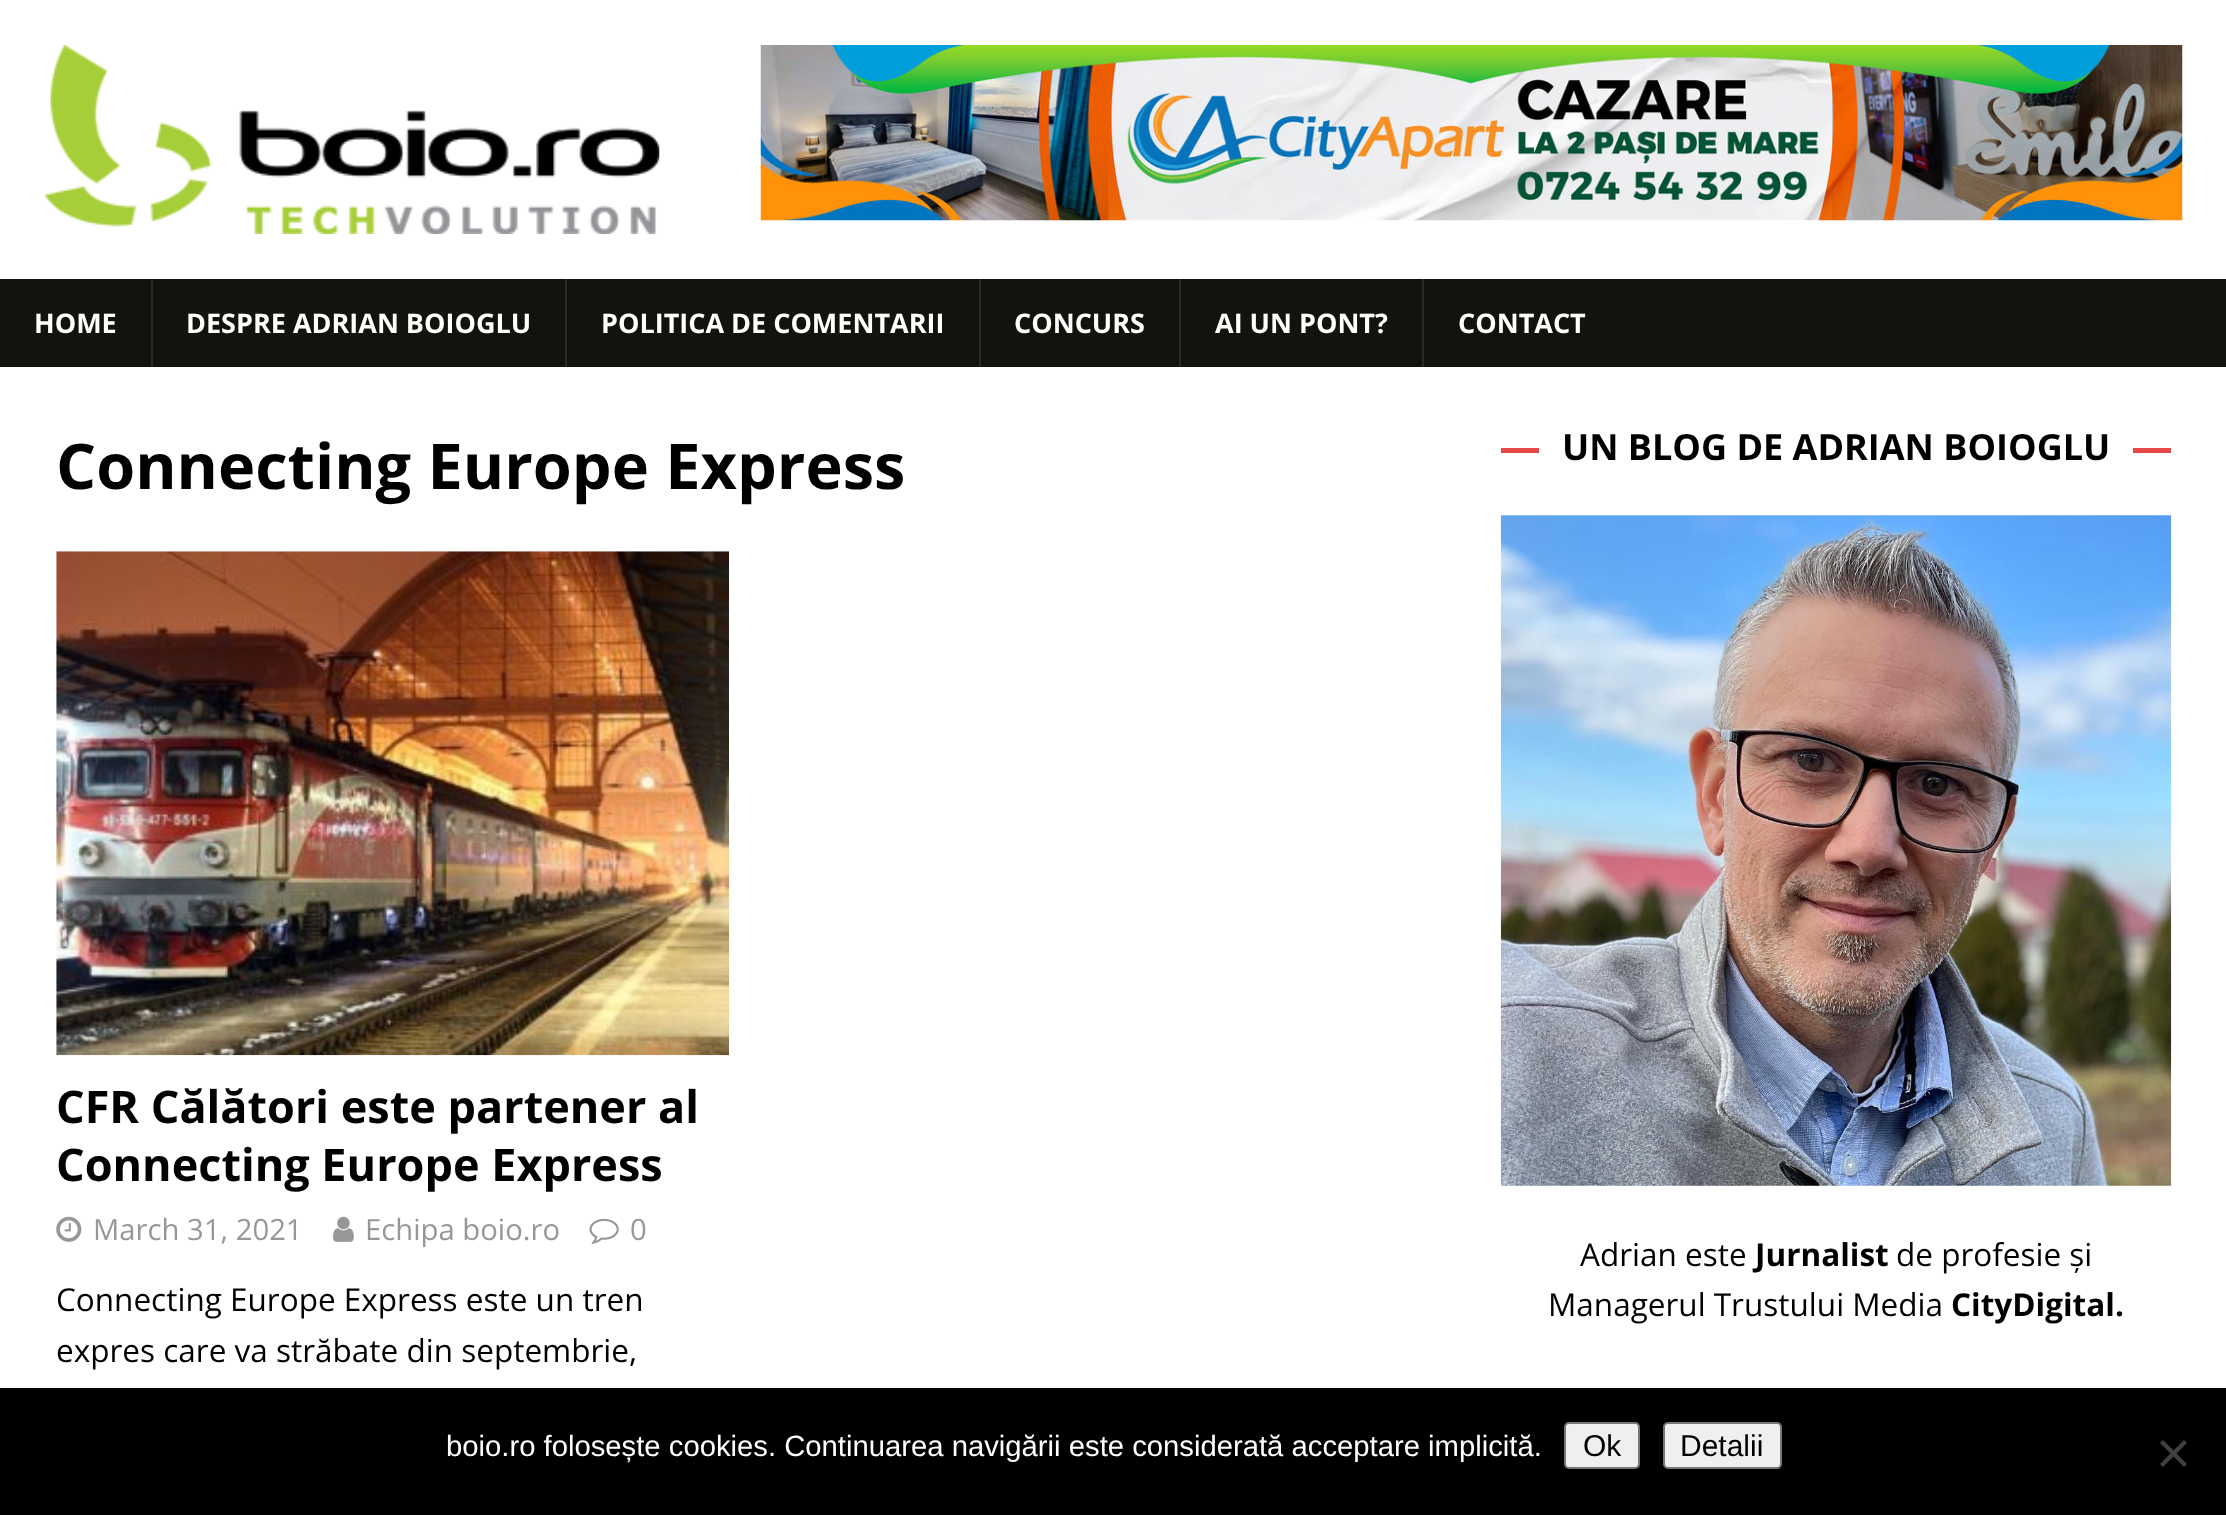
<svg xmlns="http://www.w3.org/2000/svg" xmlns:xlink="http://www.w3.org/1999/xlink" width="2226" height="1515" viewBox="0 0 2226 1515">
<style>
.cls-1{font:bold 27px Open Sans;fill:#ffffff}
.cls-2{font:bold 63px Open Sans;fill:#000000}
.cls-3{font:bold 45px Open Sans;fill:#000000}
.cls-4{font:29.25px Open Sans;fill:#979797}
.cls-5{font:31.5px Open Sans;fill:#000000}
.cls-6{font:bold 36px Open Sans;fill:#000000}
.cls-7{font:bold 31.5px Open Sans;fill:#000000}
.cls-8{font:29.25px Liberation Sans;fill:#ffffff}
.cls-9{font:30px Liberation Sans;fill:#000000}
</style>
<rect width="100%" height="100%" fill="#ffffff"/>
<image xlink:href="image0.png" x="45" y="45" width="615" height="189"/>
<image xlink:href="image1.png" x="760" y="45" width="1423" height="176"/>
<rect fill="#11140d" x="0" y="279" width="2226" height="88"/>
<rect fill="#292c25" x="151" y="279" width="2" height="88"/>
<rect fill="#292c25" x="565" y="279" width="2" height="88"/>
<rect fill="#292c25" x="979" y="279" width="2" height="88"/>
<rect fill="#292c25" x="1179" y="279" width="2" height="88"/>
<rect fill="#292c25" x="1422" y="279" width="2" height="88"/>
<image xlink:href="image2.png" x="56" y="551" width="673" height="505"/>
<image xlink:href="image3.png" x="56" y="1216" width="26" height="26"/>
<image xlink:href="image4.png" x="333" y="1216" width="21" height="26"/>
<image xlink:href="image5.png" x="589" y="1218" width="30" height="26"/>
<rect fill="#e64946" x="1501" y="448" width="670" height="5"/>
<rect fill="#ffffff" x="1539" y="448" width="594" height="5"/>
<image xlink:href="image6.png" x="1500" y="515" width="672" height="671"/>
<rect fill="#000000" x="0" y="1388" width="2226" height="127"/>
<rect fill="#efefef" stroke="#767676" stroke-width="2" x="1565" y="1423" width="74" height="45" rx="4"/>
<rect fill="#efefef" stroke="#767676" stroke-width="2" x="1664" y="1423" width="117" height="45" rx="4"/>
<path fill="#404040" d="M2184 1440L2187 1443L2163 1467L2160 1464Z"/>
<path fill="#404040" d="M2160 1443L2163 1440L2187 1464L2184 1467Z"/>
<text class="cls-1" x="34" y="333">HOME</text>
<text class="cls-1" x="186" y="333">DESPRE ADRIAN BOIOGLU</text>
<text class="cls-1" x="601" y="333">POLITICA DE COMENTARII</text>
<text class="cls-1" x="1014" y="333">CONCURS</text>
<text class="cls-1" x="1215" y="333">AI UN PONT?</text>
<text class="cls-1" x="1458" y="333">CONTACT</text>
<text class="cls-2" x="56" y="489">Connecting Europe Express</text>
<text class="cls-3"><tspan x="56" y="1123">CFR Călători este partener al</tspan><tspan x="56" y="1181">Connecting Europe Express</tspan></text>
<text class="cls-4" x="93" y="1240">March 31, 2021</text>
<text class="cls-4" x="365" y="1240">Echipa boio.ro</text>
<text class="cls-4" x="630" y="1240">0</text>
<text class="cls-5"><tspan x="56" y="1311">Connecting Europe Express este un tren</tspan><tspan x="56" y="1362">expres care va străbate din septembrie,</tspan></text>
<text class="cls-6" x="1562" y="460">UN BLOG DE ADRIAN BOIOGLU</text>
<text class="cls-5" x="1580" y="1266">Adrian este</text>
<text class="cls-7" x="1755" y="1266">Jurnalist</text>
<text class="cls-5" x="1896" y="1266">de profesie și</text>
<text class="cls-5" x="1548" y="1316">Managerul Trustului Media</text>
<text class="cls-7" x="1951" y="1316">CityDigital.</text>
<text class="cls-8" x="446" y="1456">boio.ro folosește cookies. Continuarea navigării este considerată acceptare implicită.</text>
<text class="cls-9" x="1583" y="1456">Ok</text>
<text class="cls-9" x="1680" y="1456">Detalii</text>
</svg>
